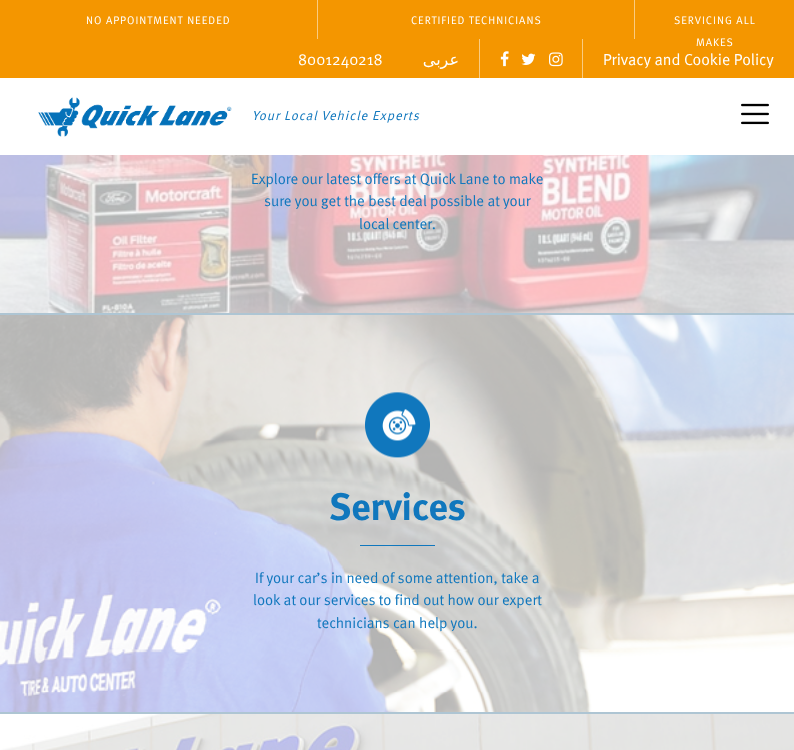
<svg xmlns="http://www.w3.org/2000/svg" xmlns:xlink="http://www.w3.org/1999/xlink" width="794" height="750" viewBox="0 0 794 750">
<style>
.cls-1{font:11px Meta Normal;letter-spacing:1px;fill:#ffffff}
.cls-2{font:16px Meta Normal;fill:#ffffff}
.cls-3{font:16px DejaVu Sans;direction:rtl;fill:#ffffff}
.cls-4{font:italic 13px Meta Normal;letter-spacing:1px;fill:#1077bd}
.cls-5{font:15px Meta Normal;fill:#1077bd}
.cls-6{font:bold 38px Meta;fill:#1077bd}
</style>
<rect width="100%" height="100%" fill="#ffffff"/>
<rect fill="#f49600" x="0" y="0" width="794" height="78"/>
<rect fill="#facb80" x="317" y="0" width="1" height="39"/>
<rect fill="#facb80" x="634" y="0" width="1" height="39"/>
<rect fill="#facb80" x="479" y="39" width="1" height="39"/>
<image xlink:href="image0.png" x="500" y="51" width="9" height="16"/>
<image xlink:href="image1.png" x="521" y="53" width="15" height="12"/>
<image xlink:href="image2.png" x="549" y="52" width="14" height="15"/>
<rect fill="#facb80" x="582" y="39" width="1" height="39"/>
<image xlink:href="image3.png" x="38" y="97" width="194" height="40"/>
<image xlink:href="image4.png" x="741" y="103" width="28" height="22"/>
<image xlink:href="image5.png" x="0" y="155" width="794" height="158"/>
<rect fill="#aec5d3" x="0" y="313" width="794" height="2"/>
<image xlink:href="image6.png" x="0" y="315" width="794" height="397"/>
<rect fill="#aec5d3" x="0" y="712" width="794" height="2"/>
<image xlink:href="image7.png" x="365" y="392" width="65" height="66"/>
<rect fill="#1077bd" x="360" y="545" width="75" height="1"/>
<image xlink:href="image8.png" x="0" y="714" width="794" height="36"/>
<text class="cls-1" x="86" y="24">NO APPOINTMENT NEEDED</text>
<text class="cls-1" x="411" y="24">CERTIFIED TECHNICIANS</text>
<text class="cls-1" x="674" y="24">SERVICING ALL</text>
<text class="cls-1" x="696" y="46">MAKES</text>
<text class="cls-2" x="298" y="65">8001240218</text>
<text class="cls-3" x="459" y="65">عربى</text>
<text class="cls-2" x="603" y="65">Privacy and Cookie Policy</text>
<text class="cls-4" x="252" y="120">Your Local Vehicle Experts</text>
<text class="cls-5" x="251" y="184">Explore our latest offers at Quick Lane to make</text>
<text class="cls-5" x="264" y="206">sure you get the best deal possible at your</text>
<text class="cls-5" x="359" y="229">local center.</text>
<text class="cls-6" x="329" y="520">Services</text>
<text class="cls-5" x="255" y="583">If your car’s in need of some attention, take a</text>
<text class="cls-5" x="253" y="605">look at our services to find out how our expert</text>
<text class="cls-5" x="317" y="628">technicians can help you.</text>
</svg>
